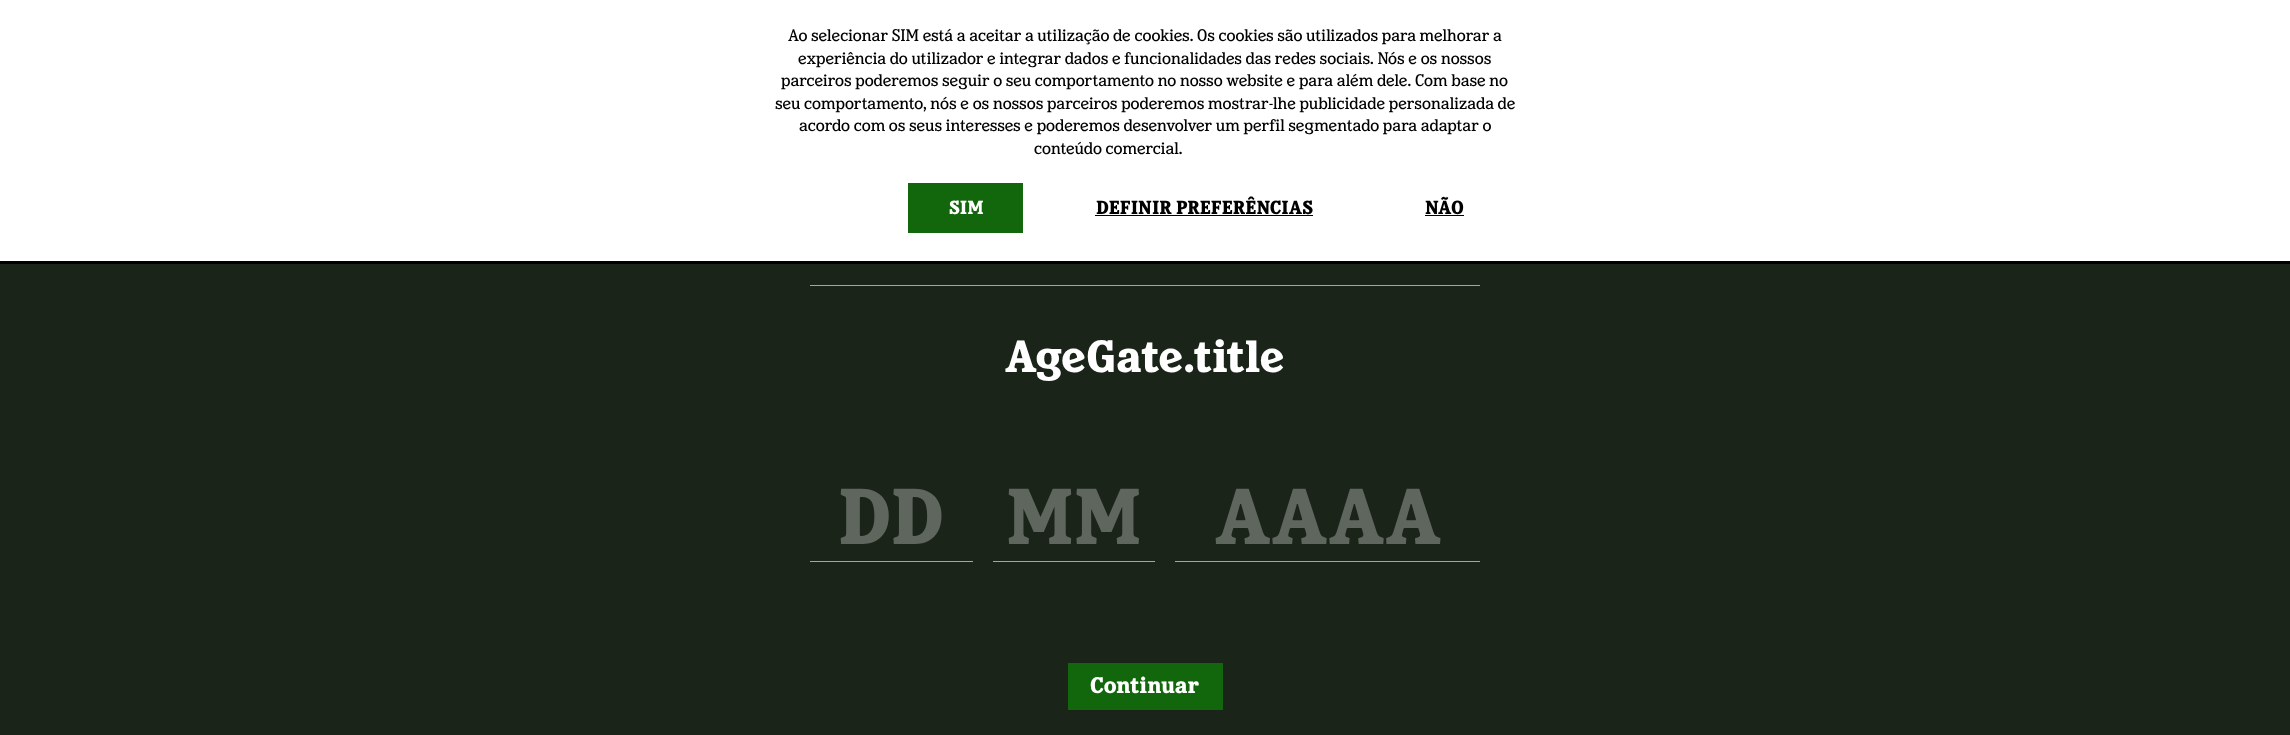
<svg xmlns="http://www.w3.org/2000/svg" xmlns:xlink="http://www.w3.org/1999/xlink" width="2290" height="735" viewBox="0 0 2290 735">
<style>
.cls-1{font:15px 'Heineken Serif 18';fill:#000000}
.cls-2{font:bold 16.9px 'Heineken Serif 18';fill:#ffffff}
.cls-3{font:bold 16.9px 'Heineken Serif 18';fill:#000000}
.cls-4{font:bold 40px 'Heineken Serif 18';fill:#ffffff}
.cls-5{font:bold 70px 'Heineken Serif 18';fill:#5f665e}
.cls-6{font:bold 20px 'Heineken Serif 18';fill:#ffffff}
</style>
<rect width="100%" height="100%" fill="#1a2419"/>
<rect fill="#ffffff" x="0" y="0" width="2290" height="261"/>
<rect fill="#000000" x="0" y="261" width="2290" height="3"/>
<rect fill="#12660b" x="908" y="183" width="115" height="50"/>
<rect fill="#000000" x="1095" y="215" width="218" height="1"/>
<rect fill="#000000" x="1425" y="215" width="39" height="1"/>
<rect fill="#a3a7a3" x="810" y="285" width="670" height="1"/>
<rect fill="#a3a7a3" x="810" y="561" width="163" height="1"/>
<rect fill="#a3a7a3" x="993" y="561" width="162" height="1"/>
<rect fill="#a3a7a3" x="1175" y="561" width="305" height="1"/>
<rect fill="#12660b" x="1068" y="663" width="155" height="47"/>
<text class="cls-1" x="788" y="41">Ao selecionar SIM está a aceitar a utilização de cookies. Os cookies são utilizados para melhorar a</text>
<text class="cls-1" x="798" y="64">experiência do utilizador e integrar dados e funcionalidades das redes sociais. Nós e os nossos</text>
<text class="cls-1" x="781" y="86">parceiros poderemos seguir o seu comportamento no nosso website e para além dele. Com base no</text>
<text class="cls-1" x="775" y="109">seu comportamento, nós e os nossos parceiros poderemos mostrar-lhe publicidade personalizada de</text>
<text class="cls-1" x="799" y="131">acordo com os seus interesses e poderemos desenvolver um perfil segmentado para adaptar o</text>
<text class="cls-1" x="1034" y="154">conteúdo comercial.</text>
<text class="cls-2" x="949" y="214">SIM</text>
<text class="cls-3" x="1096" y="214">DEFINIR PREFERÊNCIAS</text>
<text class="cls-3" x="1425" y="214">NÃO</text>
<text class="cls-4" x="1005" y="372">AgeGate.title</text>
<text class="cls-5" x="838" y="544">DD</text>
<text class="cls-5" x="1006" y="544">MM</text>
<text class="cls-5" x="1215" y="544">AAAA</text>
<text class="cls-6" x="1090" y="693">Continuar</text>
</svg>
